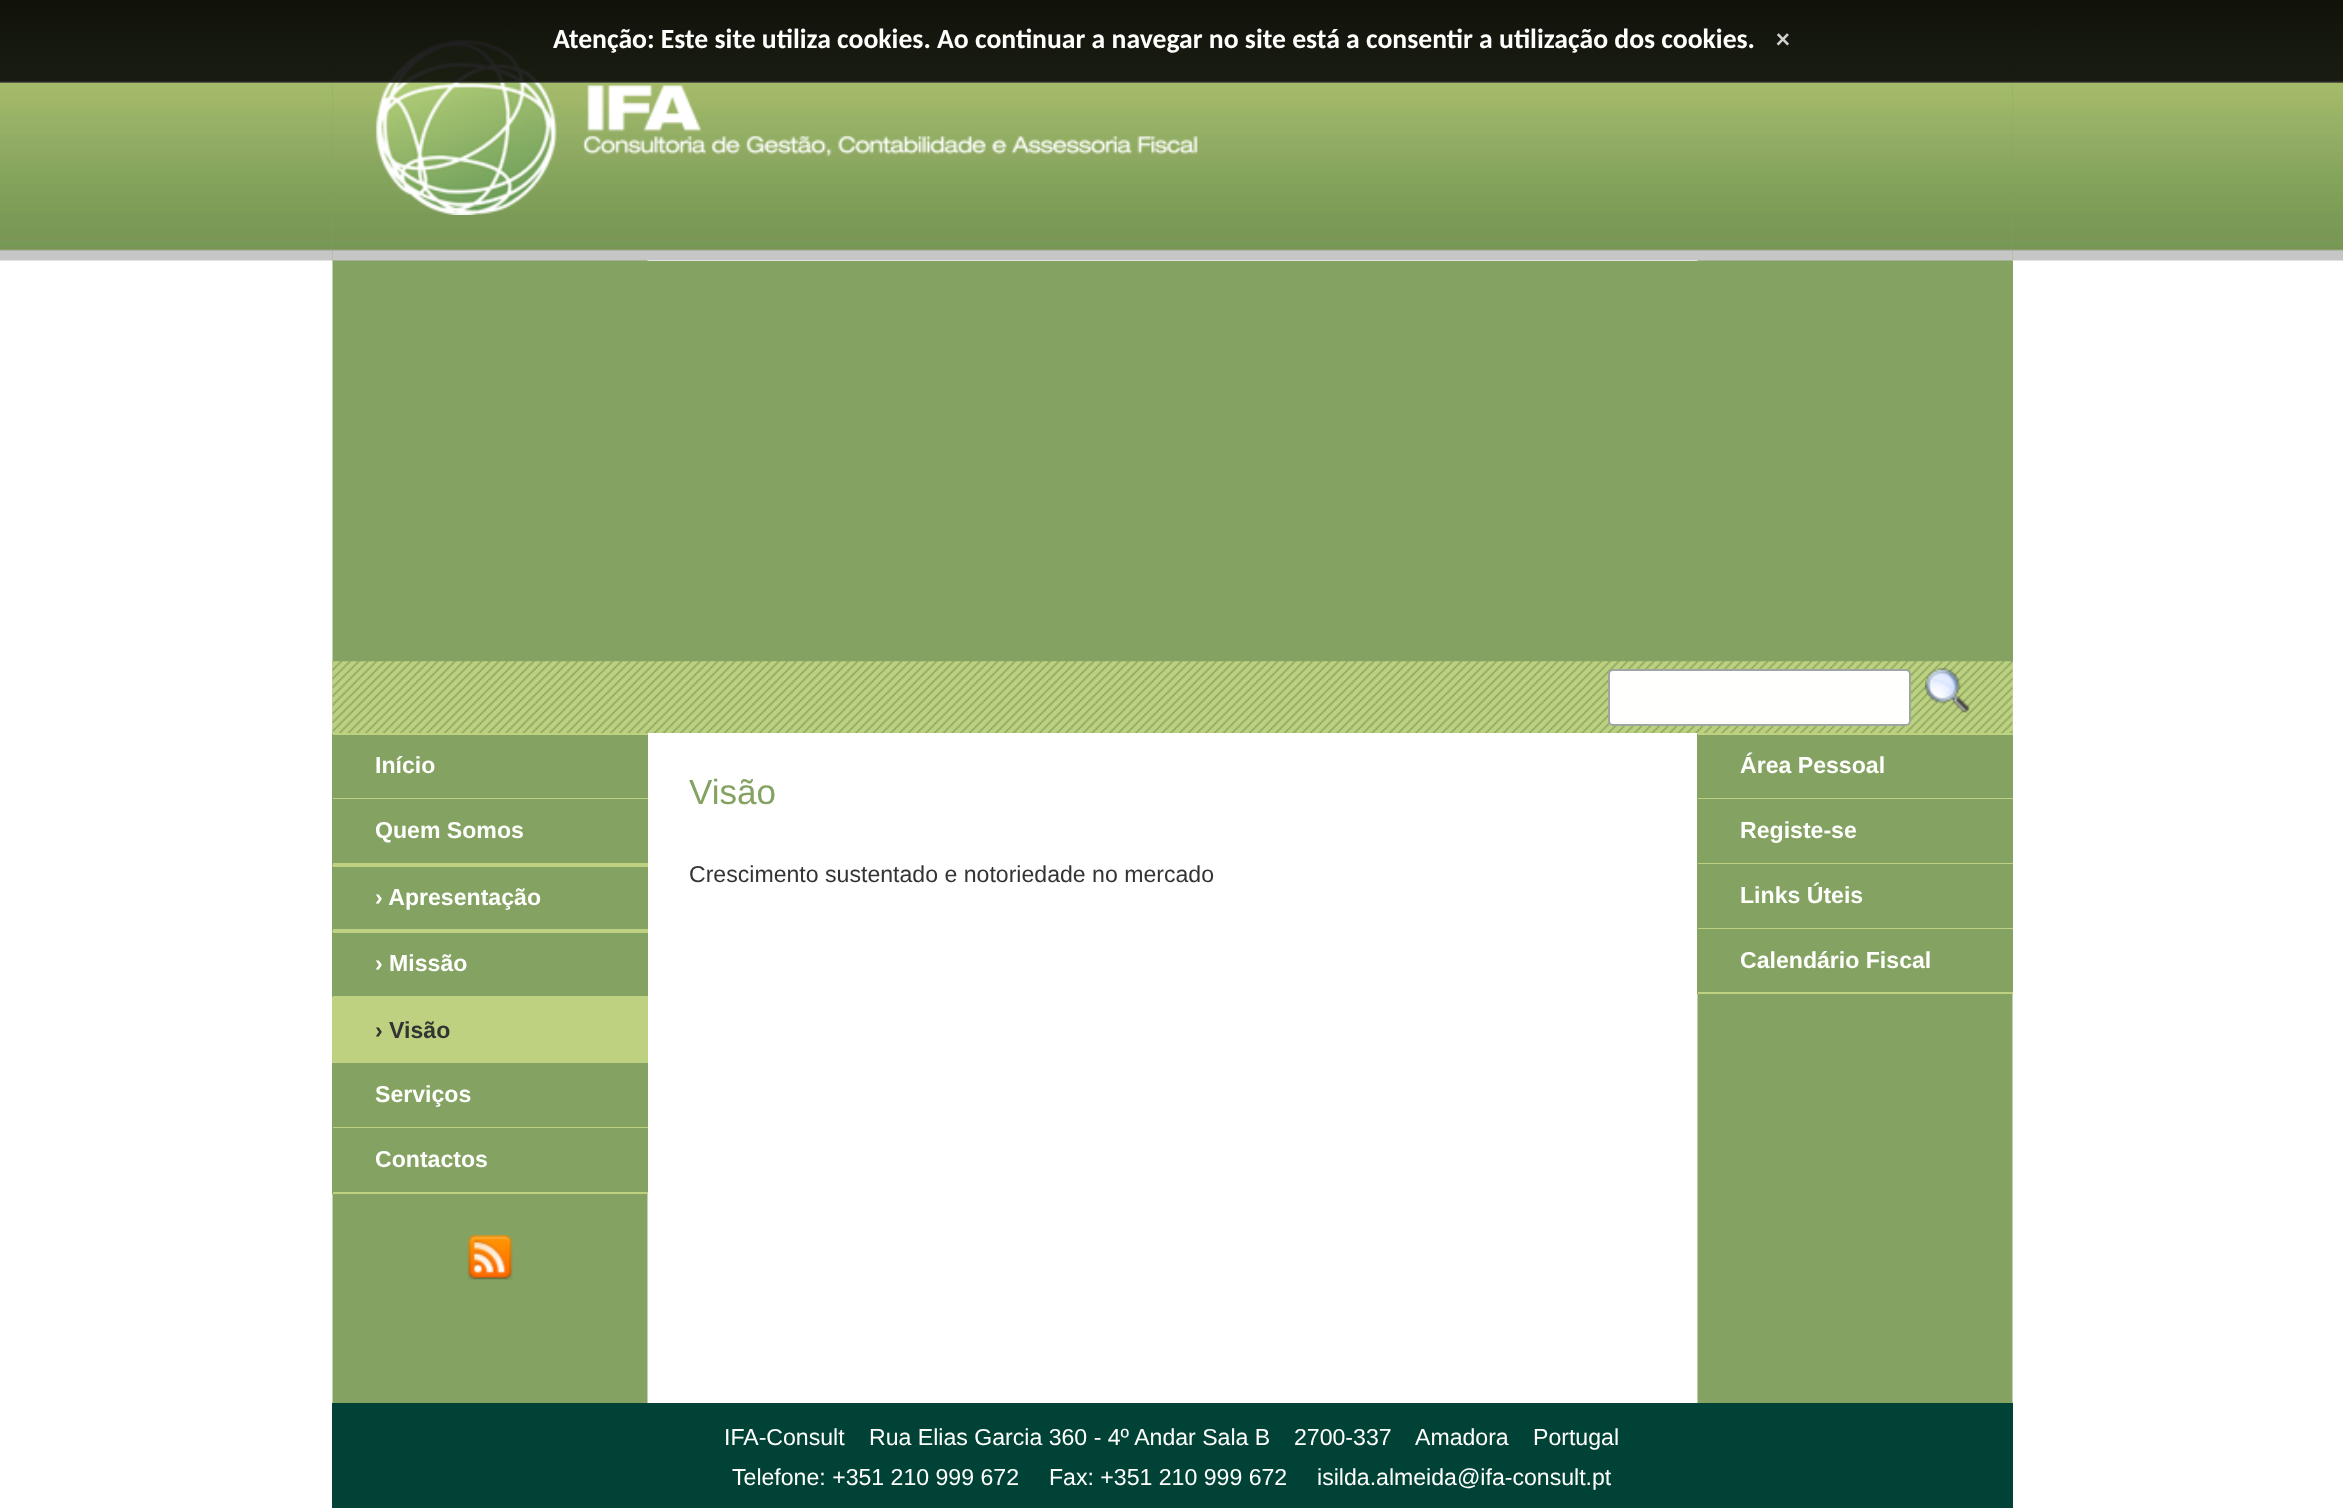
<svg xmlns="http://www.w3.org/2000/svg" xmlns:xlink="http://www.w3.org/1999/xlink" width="2343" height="1508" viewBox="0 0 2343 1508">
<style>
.cls-1{font:bold 27.7px Carlito;fill:#fffffd}
.cls-2{font:bold 27.7px Carlito;fill:#d0d1cf}
.cls-3{font:bold 23.1px Liberation Sans;fill:#fffffd}
.cls-4{font:bold 23.1px Liberation Sans;fill:#333433}
.cls-5{font:35px Liberation Sans;fill:#84a262}
.cls-6{font:23.1px Liberation Sans;fill:#333433}
.cls-7{font:23.1px Liberation Sans;fill:#fffffd}
</style>
<defs>
<linearGradient id="g1" gradientUnits="userSpaceOnUse" x1="1172" y1="0" x2="1172" y2="81"><stop offset="0" stop-color="#000000" stop-opacity="0.7"/><stop offset="1" stop-color="#000000" stop-opacity="0.5"/></linearGradient>
<linearGradient id="g2" gradientUnits="userSpaceOnUse" x1="1172" y1="80" x2="1172" y2="161"><stop offset="0" stop-color="#000000" stop-opacity="0.7"/><stop offset="1" stop-color="#000000" stop-opacity="0.5"/></linearGradient>
</defs>
<rect width="100%" height="100%" fill="#ffffff"/>
<image xlink:href="image0.png" x="0" y="0" width="2343" height="261"/>
<image xlink:href="image1.png" x="332" y="0" width="1681" height="1403"/>
<image xlink:href="image2.png" x="332" y="0" width="1681" height="261"/>
<image xlink:href="image3.png" x="375" y="40" width="823" height="175"/>
<rect fill="#000000" fill-opacity="0.7" x="0" y="0" width="2343" height="82"/>
<rect fill="url(#g1)" x="0" y="0" width="2343" height="81"/>
<rect fill="url(#g2)" x="0" y="81" width="2343" height="1"/>
<rect fill="#333333" fill-opacity="0.7" x="0" y="81" width="2343" height="2"/>
<rect fill="#84a262" x="647" y="261" width="1366" height="401"/>
<image xlink:href="image4.png" x="332" y="661" width="1681" height="72"/>
<rect fill="#fffffe" stroke="#9fa5a0" stroke-width="2" x="1609" y="670" width="301" height="55" rx="4"/>
<image xlink:href="image5.png" x="1925" y="668" width="45" height="45"/>
<rect fill="#84a262" x="332" y="734" width="316" height="131"/>
<rect fill="#bed180" x="333" y="733" width="315" height="2"/>
<rect fill="#bed180" x="333" y="798" width="315" height="1"/>
<rect fill="#bed180" x="333" y="863" width="315" height="2"/>
<rect fill="#84a262" x="332" y="866" width="316" height="65"/>
<rect fill="#bed180" x="333" y="865" width="315" height="2"/>
<rect fill="#bed180" x="333" y="929" width="315" height="2"/>
<rect fill="#84a262" x="332" y="932" width="316" height="65"/>
<rect fill="#bed180" x="333" y="931" width="315" height="2"/>
<rect fill="#bed180" x="333" y="996" width="315" height="1"/>
<rect fill="#bed180" x="332" y="997" width="316" height="65"/>
<rect fill="#bed180" x="333" y="1062" width="315" height="1"/>
<rect fill="#84a262" x="332" y="1063" width="316" height="131"/>
<rect fill="#bed180" x="333" y="1127" width="315" height="1"/>
<rect fill="#bed180" x="333" y="1192" width="315" height="2"/>
<image xlink:href="image6.png" x="467" y="1235" width="46" height="45"/>
<rect fill="#84a262" x="1697" y="734" width="316" height="260"/>
<rect fill="#bed180" x="1698" y="733" width="315" height="2"/>
<rect fill="#bed180" x="1698" y="798" width="315" height="1"/>
<rect fill="#bed180" x="1698" y="863" width="315" height="1"/>
<rect fill="#bed180" x="1698" y="928" width="315" height="1"/>
<rect fill="#bed180" x="1698" y="992" width="315" height="2"/>
<rect fill="#004236" x="332" y="1403" width="1681" height="105"/>
<text class="cls-1" x="553" y="48">Atenção: Este site utiliza cookies. Ao continuar a navegar no site está a consentir a utilização dos cookies.</text>
<text class="cls-2" x="1776" y="48">×</text>
<text class="cls-3" x="375" y="773">Início</text>
<text class="cls-3" x="375" y="838">Quem Somos</text>
<text class="cls-3" x="375" y="905">› Apresentação</text>
<text class="cls-3" x="375" y="971">› Missão</text>
<text class="cls-4" x="375" y="1038">› Visão</text>
<text class="cls-3" x="375" y="1102">Serviços</text>
<text class="cls-3" x="375" y="1167">Contactos</text>
<text class="cls-5" x="689" y="804">Visão</text>
<text class="cls-6" x="689" y="882">Crescimento sustentado e notoriedade no mercado</text>
<text class="cls-3" x="1740" y="773">Área Pessoal</text>
<text class="cls-3" x="1740" y="838">Registe-se</text>
<text class="cls-3" x="1740" y="903">Links Úteis</text>
<text class="cls-3" x="1740" y="968">Calendário Fiscal</text>
<text class="cls-7" x="724" y="1445">IFA-Consult</text>
<text class="cls-7" x="869" y="1445">Rua Elias Garcia 360 - 4º Andar Sala B</text>
<text class="cls-7" x="1294" y="1445">2700-337</text>
<text class="cls-7" x="1415" y="1445">Amadora</text>
<text class="cls-7" x="1533" y="1445">Portugal</text>
<text class="cls-7" x="732" y="1485">Telefone: +351 210 999 672</text>
<text class="cls-7" x="1049" y="1485">Fax: +351 210 999 672</text>
<text class="cls-7" x="1317" y="1485">isilda.almeida@ifa-consult.pt</text>
</svg>
